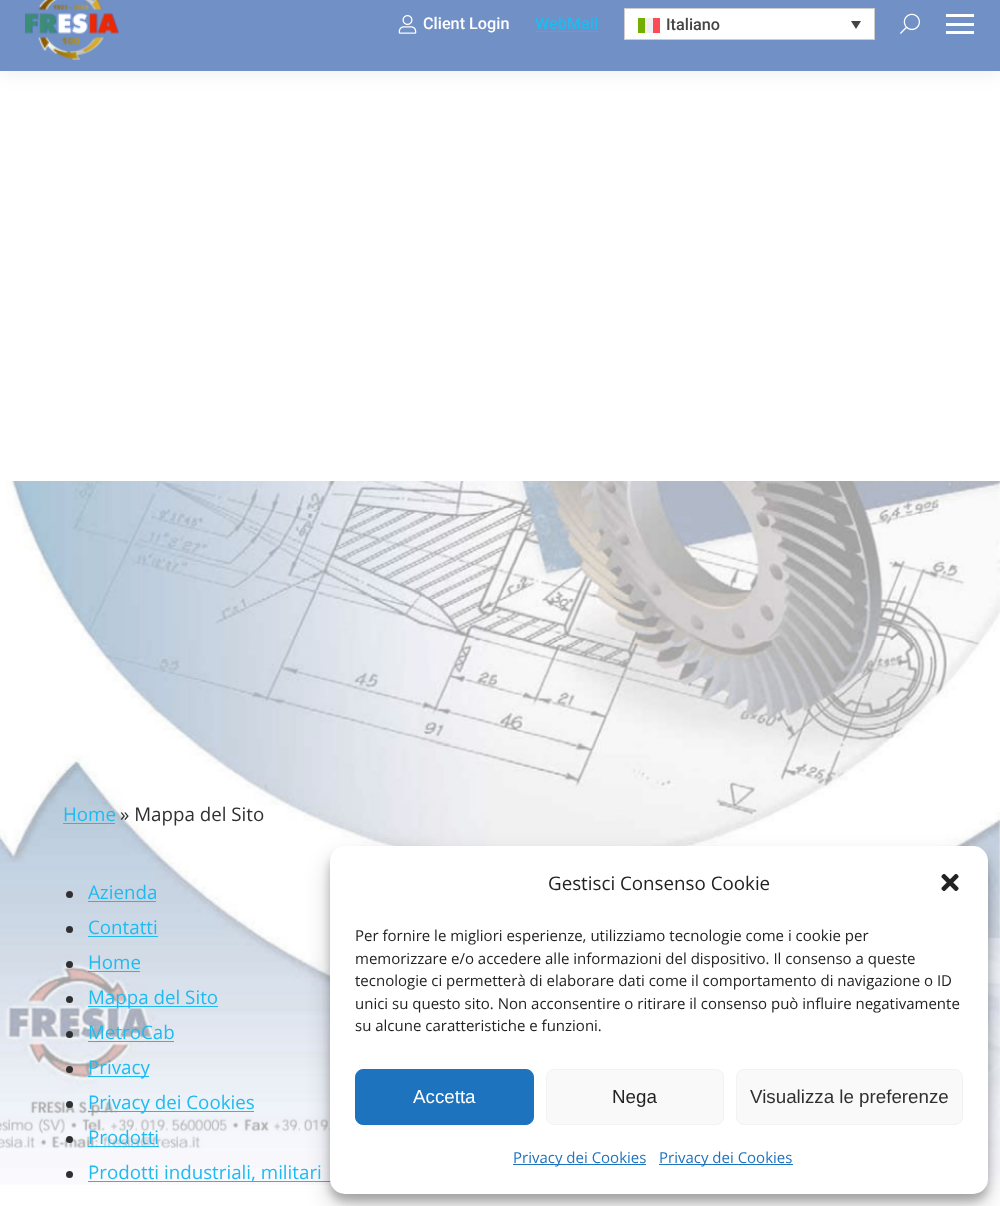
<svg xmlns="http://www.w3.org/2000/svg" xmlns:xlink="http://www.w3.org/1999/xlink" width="1000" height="1206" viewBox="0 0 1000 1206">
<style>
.cls-1{font:500 16.25px Roboto;fill:#ffffff}
.cls-2{font:500 16.25px Roboto;fill:#1ebbf0}
.cls-3{font:500 16.25px Roboto;fill:#444444}
.cls-4{font:18.75px Open Sans;fill:#1ebbf0}
.cls-5{font:18.75px Open Sans;fill:#303030}
.cls-6{font:18.75px Open Sans;fill:#222222}
.cls-7{font:15px Open Sans;fill:#222222}
.cls-8{font:18.75px Liberation Sans;fill:#ffffff}
.cls-9{font:18.75px Liberation Sans;fill:#222222}
.cls-10{font:18.75px Liberation Sans;fill:#303030}
.cls-11{font:15px Open Sans;fill:#1e73be}
</style>
<rect width="100%" height="100%" fill="#ffffff"/>
<rect fill="#000000" fill-opacity="0.07" filter="blur(9.5px)" x="-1" y="-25" width="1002" height="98"/>
<rect fill="#7190c6" x="0" y="0" width="1000" height="71"/>
<image xlink:href="image0.png" x="25" y="0" width="94" height="60"/>
<image xlink:href="image1.png" x="398" y="15" width="19" height="19"/>
<rect fill="#1ebbf0" x="535" y="31" width="64" height="1"/>
<rect fill="#ffffff" stroke="#cdcdcd" x="624.5" y="8.5" width="250" height="31"/>
<rect fill="#73af00" x="638" y="18" width="7" height="15"/>
<rect fill="#f0f0f0" x="645" y="18" width="8" height="15"/>
<rect fill="#ff4b55" x="653" y="18" width="7" height="15"/>
<path fill="#444444" d="M851 21H861L856 29Z"/>
<image xlink:href="image2.png" x="900" y="13" width="20" height="21"/>
<rect fill="#ffffff" x="946" y="14" width="28" height="3"/>
<rect fill="#ffffff" x="946" y="23" width="28" height="3"/>
<rect fill="#ffffff" x="946" y="31" width="28" height="3"/>
<image xlink:href="image3.png" x="0" y="481" width="1000" height="704"/>
<rect fill="#1ebbf0" x="63" y="823" width="52" height="1"/>
<circle fill="#303030" cx="69.5" cy="894.5" r="3.5"/>
<rect fill="#1ebbf0" x="88" y="901" width="68" height="1"/>
<circle fill="#303030" cx="69.5" cy="929.5" r="3.5"/>
<rect fill="#1ebbf0" x="88" y="936" width="70" height="1"/>
<circle fill="#303030" cx="69.5" cy="964.5" r="3.5"/>
<rect fill="#1ebbf0" x="88" y="971" width="52" height="1"/>
<circle fill="#303030" cx="69.5" cy="999.5" r="3.5"/>
<rect fill="#1ebbf0" x="88" y="1006" width="130" height="1"/>
<circle fill="#303030" cx="69.5" cy="1034.5" r="3.5"/>
<rect fill="#1ebbf0" x="88" y="1041" width="86" height="1"/>
<circle fill="#303030" cx="69.5" cy="1069.5" r="3.5"/>
<rect fill="#1ebbf0" x="88" y="1076" width="61" height="1"/>
<circle fill="#303030" cx="69.5" cy="1104.5" r="3.5"/>
<rect fill="#1ebbf0" x="88" y="1111" width="166" height="1"/>
<circle fill="#303030" cx="69.5" cy="1139.5" r="3.5"/>
<rect fill="#1ebbf0" x="88" y="1146" width="71" height="1"/>
<circle fill="#303030" cx="69.5" cy="1174.5" r="3.5"/>
<rect fill="#1ebbf0" x="88" y="1181" width="243" height="1"/>
<rect fill="#000000" fill-opacity="0.23" filter="blur(4px)" x="330" y="854" width="658" height="347" rx="15"/>
<rect fill="#000000" fill-opacity="0.19" filter="blur(12.5px)" x="330" y="859" width="658" height="347" rx="15"/>
<rect fill="#ffffff" x="330" y="846" width="658" height="348" rx="15"/>
<image xlink:href="image4.png" x="941" y="873" width="18" height="18"/>
<rect fill="#1e73be" stroke="#1e73be" x="355.5" y="1069.5" width="178" height="55" rx="7.5"/>
<rect fill="#f9f9f9" stroke="#f2f2f2" x="546.5" y="1069.5" width="177" height="55" rx="7.5"/>
<rect fill="#f9f9f9" stroke="#f2f2f2" x="736.5" y="1069.5" width="226" height="55" rx="7.5"/>
<rect fill="#1e73be" x="513" y="1164" width="133" height="1"/>
<rect fill="#1e73be" x="659" y="1164" width="134" height="1"/>
<text class="cls-1" x="423" y="29">Client Login</text>
<text class="cls-2" x="535" y="29">WebMail</text>
<text class="cls-3" x="666" y="30">Italiano</text>
<text class="cls-4" x="63" y="821">Home</text>
<text class="cls-5" x="120" y="821">» Mappa del Sito</text>
<text class="cls-4"><tspan x="88" y="899">Azienda</tspan><tspan x="88" y="934">Contatti</tspan><tspan x="88" y="969">Home</tspan><tspan x="88" y="1004">Mappa del Sito</tspan><tspan x="88" y="1039">MetroCab</tspan><tspan x="88" y="1074">Privacy</tspan><tspan x="88" y="1109">Privacy dei Cookies</tspan><tspan x="88" y="1144">Prodotti</tspan><tspan x="88" y="1179">Prodotti industriali, militari</tspan></text>
<text class="cls-6" x="548" y="890">Gestisci Consenso Cookie</text>
<text class="cls-7"><tspan x="355" y="941">Per fornire le migliori esperienze, utilizziamo tecnologie come i cookie per</tspan><tspan x="355" y="964">memorizzare e/o accedere alle informazioni del dispositivo. Il consenso a queste</tspan><tspan x="355" y="986">tecnologie ci permetterà di elaborare dati come il comportamento di navigazione o ID</tspan><tspan x="355" y="1009">unici su questo sito. Non acconsentire o ritirare il consenso può influire negativamente</tspan><tspan x="355" y="1031">su alcune caratteristiche e funzioni.</tspan></text>
<text class="cls-8" x="413" y="1103">Accetta</text>
<text class="cls-9" x="612" y="1103">Nega</text>
<text class="cls-10" x="750" y="1103">Visualizza le preferenze</text>
<text class="cls-11" x="513" y="1163">Privacy dei Cookies</text>
<text class="cls-11" x="659" y="1163">Privacy dei Cookies</text>
</svg>
